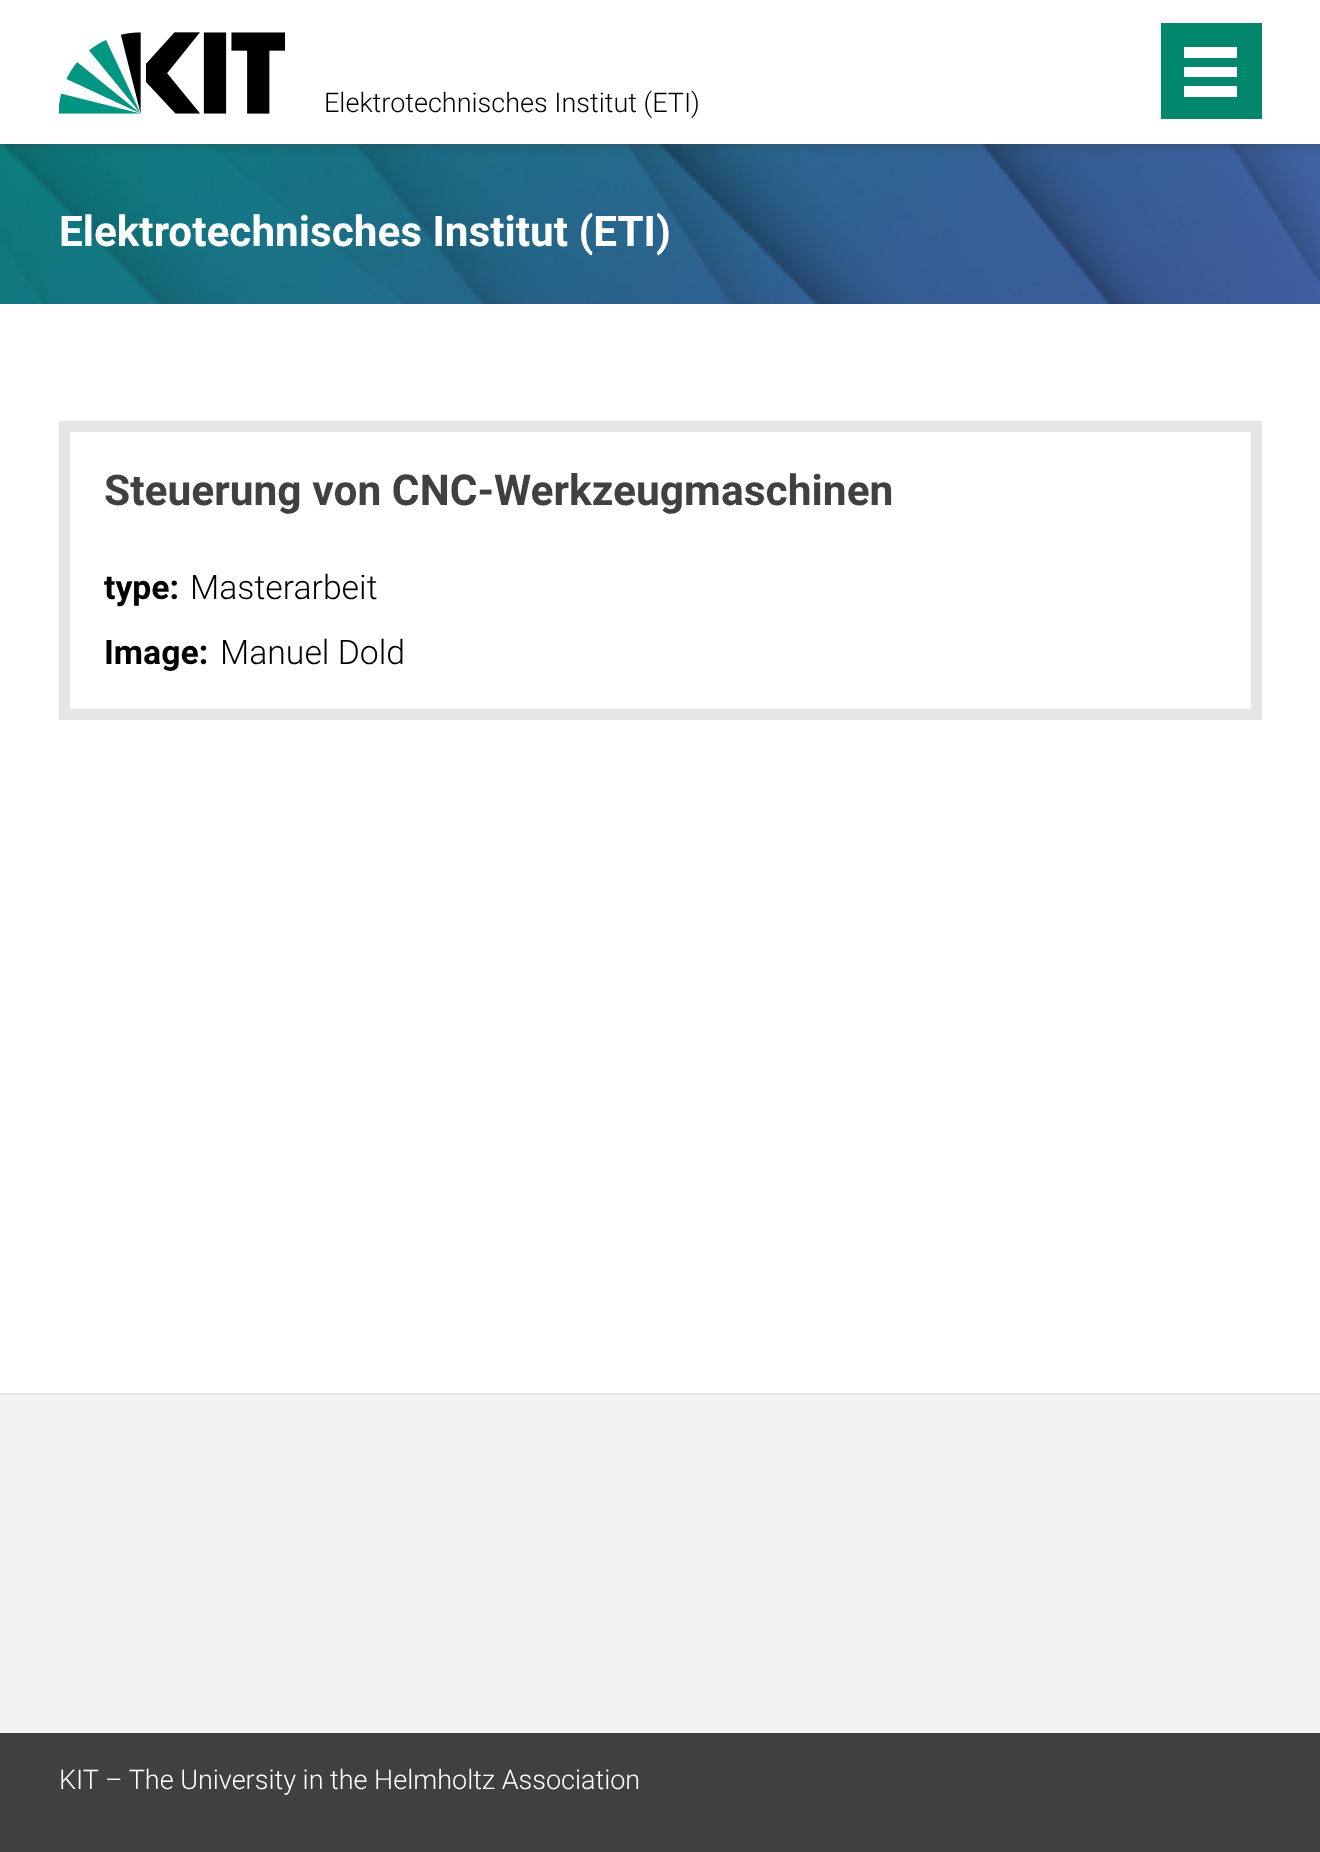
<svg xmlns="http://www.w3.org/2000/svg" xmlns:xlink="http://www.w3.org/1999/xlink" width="1320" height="1852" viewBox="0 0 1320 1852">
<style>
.cls-1{font:300 27px Roboto;fill:#000000}
.cls-2{font:bold 42.25px Roboto;fill:#ffffff}
.cls-3{font:bold 42.5px Roboto;fill:#404040}
.cls-4{font:bold 33.75px Roboto;fill:#000000}
.cls-5{font:300 33.75px Roboto;fill:#000000}
.cls-6{font:300 27px Roboto;fill:#ffffff}
</style>
<rect width="100%" height="100%" fill="#ffffff"/>
<image xlink:href="image1.png" x="0" y="144" width="1320" height="160"/>
<rect fill="#404040" fill-opacity="0.5" filter="blur(5.5px)" x="0" y="0" width="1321" height="144"/>
<rect fill="#ffffff" x="0" y="0" width="1320" height="144"/>
<image xlink:href="image0.png" x="59" y="32" width="227" height="82"/>
<rect fill="#00876c" x="1161" y="23" width="101" height="96"/>
<rect fill="#ffffff" x="1184" y="86" width="53" height="11"/>
<rect fill="#ffffff" x="1184" y="67" width="53" height="10"/>
<rect fill="#ffffff" x="1184" y="47" width="53" height="11"/>
<rect fill="none" stroke="#e6e6e6" stroke-width="11" x="64.5" y="426.5" width="1192" height="288"/>
<rect fill="#f2f2f2" x="0" y="1395" width="1320" height="338"/>
<rect fill="#e6e6e6" x="0" y="1393" width="1320" height="2"/>
<rect fill="#404040" x="0" y="1733" width="1320" height="119"/>
<text class="cls-1" x="324" y="112">Elektrotechnisches Institut (ETI)</text>
<text class="cls-2" x="59" y="246">Elektrotechnisches Institut (ETI)</text>
<text class="cls-3" x="104" y="505">Steuerung von CNC-Werkzeugmaschinen</text>
<text class="cls-4" x="104" y="599">type:</text>
<text class="cls-5" x="190" y="599">Masterarbeit</text>
<text class="cls-4" x="104" y="664">Image:</text>
<text class="cls-5" x="220" y="664">Manuel Dold</text>
<text class="cls-6" x="59" y="1789">KIT – The University in the Helmholtz Association</text>
</svg>
